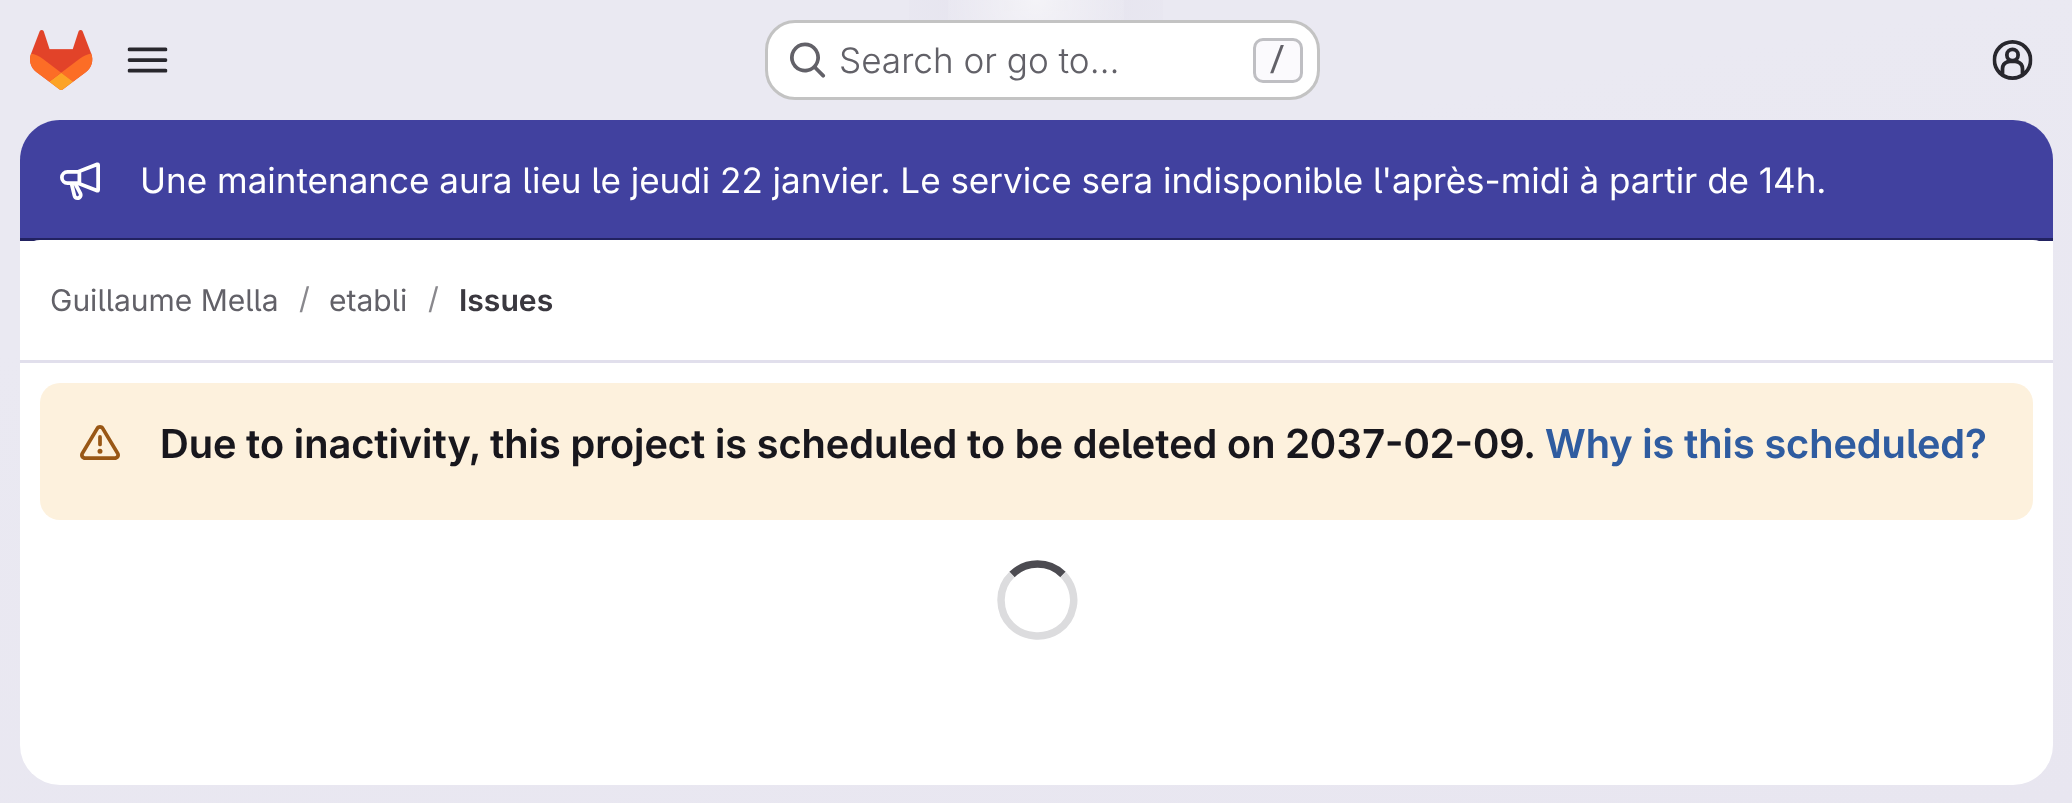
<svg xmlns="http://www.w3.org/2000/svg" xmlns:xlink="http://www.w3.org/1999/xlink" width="2072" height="803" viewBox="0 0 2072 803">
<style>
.cls-1{font:300 35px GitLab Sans;fill:#626168}
.cls-2{font:500 30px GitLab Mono;fill:#626168}
.cls-3{font:35px GitLab Sans;fill:#ffffff}
.cls-4{font:30px GitLab Sans;fill:#626168}
.cls-5{font:30px GitLab Sans;fill:#89888d}
.cls-6{font:600 30px 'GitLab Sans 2';fill:#3a383f}
.cls-7{font:600 40px GitLab Sans;fill:#18171d}
.cls-8{font:600 40px GitLab Sans;fill:#2f5ca0}
</style>
<defs>
<linearGradient id="g1" gradientUnits="userSpaceOnUse" x1="1136" y1="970" x2="936" y2="-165"><stop offset="0" stop-color="#e8e6f0"/><stop offset="0.7" stop-color="#eae9f2"/></linearGradient>
<radialGradient id="g2" gradientUnits="userSpaceOnUse" cx="0" cy="0" r="1" gradientTransform="matrix(1036 0 0 805 1036 0)"><stop offset="0" stop-color="#e4e2ed"/><stop offset="0.17" stop-color="#e4e2ed" stop-opacity="0"/></radialGradient>
<radialGradient id="g3" gradientUnits="userSpaceOnUse" cx="0" cy="0" r="1" gradientTransform="matrix(1036 0 0 805 1036 0)"><stop offset="0" stop-color="#e4e2ec"/><stop offset="0.12" stop-color="#e4e2ec" stop-opacity="0"/></radialGradient>
<radialGradient id="g4" gradientUnits="userSpaceOnUse" cx="1036" cy="0" r="1312"><stop offset="0" stop-color="#ffffff" stop-opacity="0.6"/><stop offset="0.08" stop-color="#ffffff" stop-opacity="0"/></radialGradient>
</defs>
<rect width="100%" height="100%" fill="#ffffff"/>
<rect fill="url(#g1)" x="0" y="0" width="2072" height="803"/>
<rect fill="url(#g2)" x="909" y="0" width="254" height="99"/>
<rect fill="url(#g3)" x="1004" y="1" width="64" height="10"/>
<rect fill="url(#g4)" x="948" y="0" width="176" height="87"/>
<image xlink:href="image0.png" x="30" y="30" width="63" height="60"/>
<image xlink:href="image1.png" x="127" y="47" width="41" height="26"/>
<rect fill="#ffffff" x="765" y="20" width="555" height="80" rx="30"/>
<rect fill="none" stroke="#050506" stroke-opacity="0.24" stroke-width="3" x="766.5" y="21.5" width="552" height="77" rx="28.5"/>
<image xlink:href="image2.png" x="790" y="42" width="36" height="36"/>
<rect fill="#fbfafd" stroke="#bfbfc3" stroke-width="3" x="1254.5" y="39.5" width="47" height="42" rx="8.5"/>
<image xlink:href="image3.png" x="1992" y="40" width="41" height="40"/>
<rect fill="#ffffff" x="20" y="120" width="2033" height="665" rx="40"/>
<path fill="#41419f" d="M60 120H2013C2035 120 2053 138 2053 160V240H20V160C20 138 38 120 60 120Z"/>
<rect fill="#222261" x="20" y="238" width="2033" height="3"/>
<image xlink:href="image4.png" x="60" y="162" width="40" height="38"/>
<path fill="#ffffff" d="M40 240H2033C2044 240 2053 249 2053 260V363H20V260C20 249 29 240 40 240Z"/>
<rect fill="#e1dfec" x="20" y="360" width="2033" height="3"/>
<rect fill="#fdf1dd" x="40" y="383" width="1993" height="137" rx="20"/>
<image xlink:href="image5.png" x="80" y="425" width="40" height="35"/>
<path fill="none" stroke="#4c4b51" stroke-width="7.5" d="M1012 574.5C1026 560.5 1049 560.5 1063 574.5"/>
<path fill="none" stroke="#dcdcde" stroke-width="7.5" d="M1063 574.5C1071.5 583 1075.5 595.5 1073 607C1064.5 649.5 1001.5 643.5 1001 600C1001 590.5 1005 581 1012 574.5"/>
<text class="cls-1" x="839" y="73">Search or go to…</text>
<text class="cls-2" x="1268" y="70">/</text>
<text class="cls-3" x="140" y="193">Une maintenance aura lieu le jeudi 22 janvier. Le service sera indisponible l'après-midi à partir de 14h.</text>
<text class="cls-4" x="50" y="311">Guillaume Mella</text>
<text class="cls-5" x="299" y="309">/</text>
<text class="cls-4" x="329" y="311">etabli</text>
<text class="cls-5" x="428" y="309">/</text>
<text class="cls-6" x="459" y="311">Issues</text>
<text class="cls-7" x="160" y="458">Due to inactivity, this project is scheduled to be deleted on 2037-02-09.</text>
<text class="cls-8" x="1545" y="458">Why is this scheduled?</text>
</svg>
